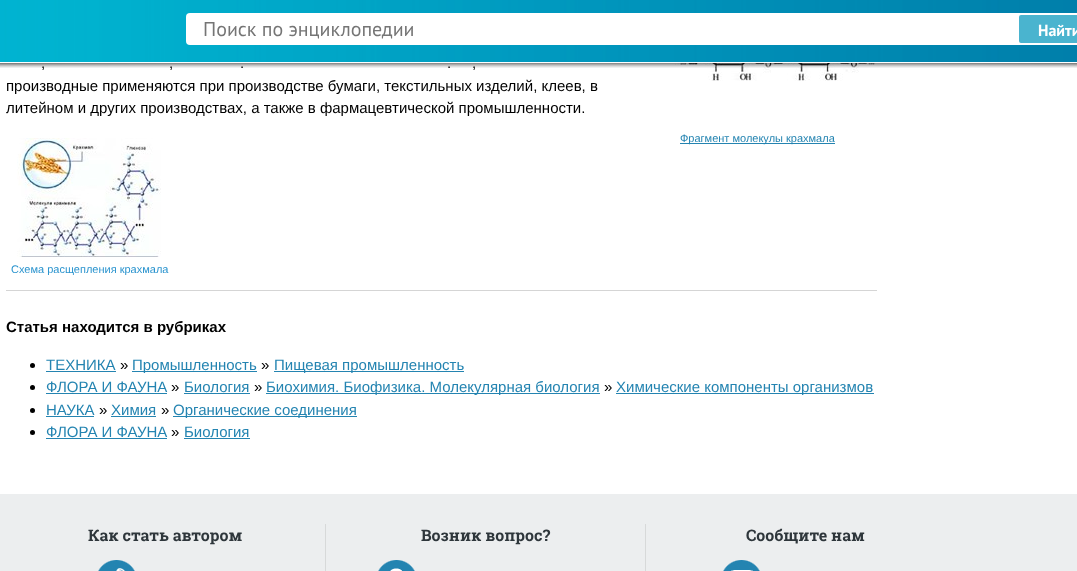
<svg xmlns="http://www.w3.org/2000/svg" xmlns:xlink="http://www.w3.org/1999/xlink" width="1077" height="571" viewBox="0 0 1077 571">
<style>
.cls-1{font:15px Liberation Sans;fill:#000000}
.cls-2{font:bold 16px PT Sans;fill:#ffffff}
.cls-3{font:20px PT Sans;fill:#757575}
.cls-4{font:11px Liberation Sans;fill:#2484b1}
.cls-5{font:11px Liberation Sans;fill:#2993ce}
.cls-6{font:bold 15px Liberation Sans;fill:#000000}
.cls-7{font:15px Liberation Sans;fill:#2484b1}
.cls-8{font:bold 16px Roboto Slab;fill:#2e363b}
</style>
<defs>
<clipPath id="clip1"><rect x="9" y="263" width="161" height="12"/></clipPath>
</defs>
<rect width="100%" height="100%" fill="#ffffff"/>
<image xlink:href="image1.png" x="675" y="63" width="200" height="18"/>
<rect fill="#2484b1" x="680" y="143" width="155" height="1"/>
<image xlink:href="image2.png" x="17" y="138" width="144" height="119"/>
<rect fill="#d5d5d5" x="6" y="290" width="871" height="1"/>
<circle fill="#000000" cx="32.5" cy="365.5" r="2.5"/>
<rect fill="#2484b1" x="46" y="371" width="70" height="1"/>
<rect fill="#2484b1" x="132" y="371" width="125" height="1"/>
<rect fill="#2484b1" x="274" y="371" width="190" height="1"/>
<circle fill="#000000" cx="32.5" cy="387.5" r="2.5"/>
<rect fill="#2484b1" x="46" y="393" width="121" height="1"/>
<rect fill="#2484b1" x="184" y="393" width="66" height="1"/>
<rect fill="#2484b1" x="266" y="393" width="334" height="1"/>
<rect fill="#2484b1" x="616" y="393" width="258" height="1"/>
<circle fill="#000000" cx="32.5" cy="410.5" r="2.5"/>
<rect fill="#2484b1" x="46" y="416" width="48" height="1"/>
<rect fill="#2484b1" x="111" y="416" width="45" height="1"/>
<rect fill="#2484b1" x="173" y="416" width="184" height="1"/>
<circle fill="#000000" cx="32.5" cy="432.5" r="2.5"/>
<rect fill="#2484b1" x="46" y="438" width="121" height="1"/>
<rect fill="#2484b1" x="184" y="438" width="66" height="1"/>
<rect fill="#eceeef" x="0" y="494" width="1077" height="77"/>
<image xlink:href="image3.png" x="98" y="560" width="37" height="11"/>
<rect fill="#d7d9d9" x="645" y="524" width="1" height="47"/>
<rect fill="#d7d9d9" x="325" y="524" width="1" height="47"/>
<image xlink:href="image4.png" x="378" y="560" width="37" height="11"/>
<image xlink:href="image5.png" x="723" y="560" width="37" height="11"/>
<text class="cls-1" x="41" y="68">,</text>
<text class="cls-1" x="169" y="68">,</text>
<text class="cls-1" x="240" y="68">.</text>
<text class="cls-1" x="447" y="68">.</text>
<text class="cls-1" x="472" y="68">,</text>
<image xlink:href="image0.png" x="0" y="0" width="1077" height="68"/>
<rect fill="#ffffff" x="186" y="13" width="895" height="32" rx="4"/>
<rect fill="#4ab4cf" x="1019" y="15" width="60" height="28" rx="2"/>
<text class="cls-2" x="1038" y="36">Найти</text>
<text class="cls-3" x="203" y="36">Поиск по энциклопедии</text>
<text class="cls-1"><tspan x="6" y="91">производные применяются при производстве бумаги, текстильных изделий, клеев, в</tspan><tspan x="6" y="113">литейном и других производствах, а также в фармацевтической промышленности.</tspan></text>
<text class="cls-4" x="680" y="142">Фрагмент молекулы крахмала</text>
<g clip-path="url(#clip1)">
<text class="cls-5" x="11" y="273">Схема расщепления крахмала</text>
</g>
<text class="cls-6" x="6" y="332">Статья находится в рубриках</text>
<text class="cls-7" x="46" y="370">ТЕХНИКА</text>
<text class="cls-1" x="120" y="370">»</text>
<text class="cls-7" x="132" y="370">Промышленность</text>
<text class="cls-1" x="261" y="370">»</text>
<text class="cls-7" x="274" y="370">Пищевая промышленность</text>
<text class="cls-7" x="46" y="392">ФЛОРА И ФАУНА</text>
<text class="cls-1" x="171" y="392">»</text>
<text class="cls-7" x="184" y="392">Биология</text>
<text class="cls-1" x="254" y="392">»</text>
<text class="cls-7" x="266" y="392">Биохимия. Биофизика. Молекулярная биология</text>
<text class="cls-1" x="604" y="392">»</text>
<text class="cls-7" x="616" y="392">Химические компоненты организмов</text>
<text class="cls-7" x="46" y="415">НАУКА</text>
<text class="cls-1" x="99" y="415">»</text>
<text class="cls-7" x="111" y="415">Химия</text>
<text class="cls-1" x="161" y="415">»</text>
<text class="cls-7" x="173" y="415">Органические соединения</text>
<text class="cls-7" x="46" y="437">ФЛОРА И ФАУНА</text>
<text class="cls-1" x="171" y="437">»</text>
<text class="cls-7" x="184" y="437">Биология</text>
<text class="cls-8" x="88" y="541">Как стать автором</text>
<text class="cls-8" x="421" y="541">Возник вопрос?</text>
<text class="cls-8" x="746" y="541">Сообщите нам</text>
</svg>
